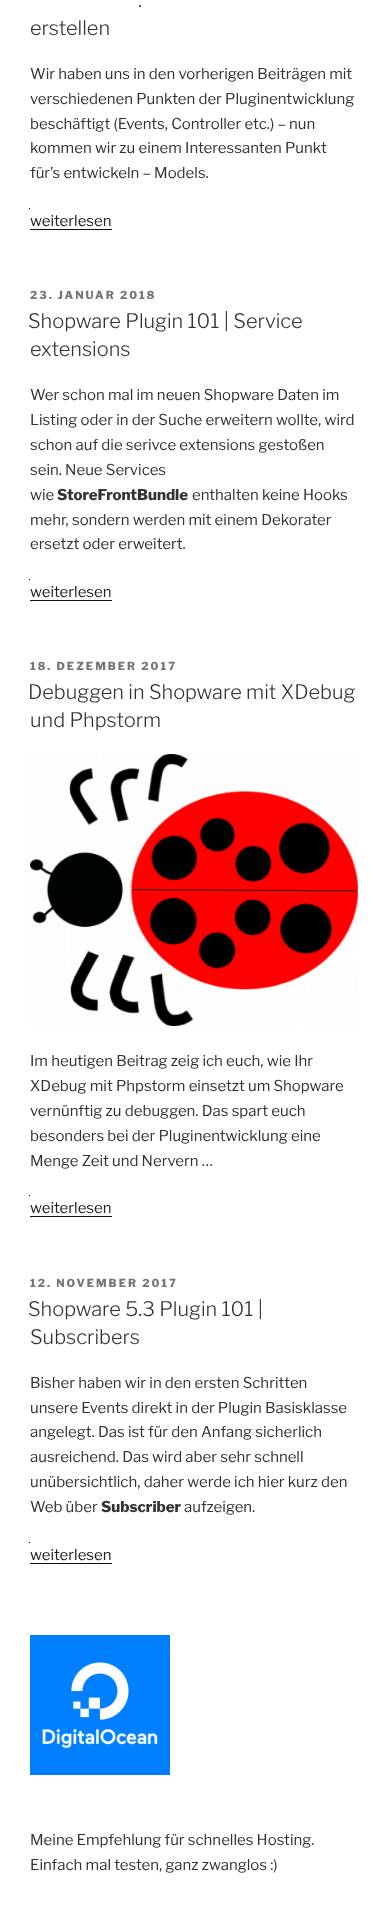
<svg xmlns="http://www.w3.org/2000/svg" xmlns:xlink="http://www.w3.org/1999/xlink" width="388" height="1905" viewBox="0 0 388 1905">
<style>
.cls-1{font:100 20px Libre Franklin;fill:#333333}
.cls-2{font:100 15px 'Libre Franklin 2';fill:#333333}
.cls-3{font:100 15px 'Libre Franklin 2';fill:#222222}
.cls-4{font:100 11px 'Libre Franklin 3';letter-spacing:2px;fill:#767676}
.cls-5{font:100 15px 'Libre Franklin 3';fill:#333333}
</style>
<rect width="100%" height="100%" fill="#ffffff"/>
<rect fill="#0f0f0f" x="29" y="208" width="1" height="1"/>
<rect fill="#0f0f0f" x="30" y="229" width="82" height="1"/>
<rect fill="#0f0f0f" x="29" y="579" width="1" height="1"/>
<rect fill="#0f0f0f" x="30" y="600" width="82" height="1"/>
<image xlink:href="image0.png" x="30" y="754" width="328" height="272"/>
<rect fill="#0f0f0f" x="29" y="1195" width="1" height="1"/>
<rect fill="#0f0f0f" x="30" y="1216" width="82" height="1"/>
<rect fill="#0f0f0f" x="29" y="1542" width="1" height="1"/>
<rect fill="#0f0f0f" x="30" y="1563" width="82" height="1"/>
<image xlink:href="image1.png" x="30" y="1635" width="140" height="140"/>
<text class="cls-1" x="138" y="7">.</text>
<text class="cls-1" x="30" y="35">erstellen</text>
<text class="cls-2"><tspan x="30" y="79">Wir haben uns in den vorherigen Beiträgen mit</tspan><tspan x="30" y="104">verschiedenen Punkten der Pluginentwicklung</tspan><tspan x="30" y="129">beschäftigt (Events, Controller etc.) – nun</tspan><tspan x="30" y="153">kommen wir zu einem Interessanten Punkt</tspan><tspan x="30" y="178">für’s entwickeln – Models.</tspan></text>
<text class="cls-3" x="30" y="226">weiterlesen</text>
<text class="cls-4" x="30" y="299">23. JANUAR 2018</text>
<text class="cls-1" x="28" y="328">Shopware Plugin 101 | Service</text>
<text class="cls-1" x="30" y="356">extensions</text>
<text class="cls-2"><tspan x="30" y="400">Wer schon mal im neuen Shopware Daten im</tspan><tspan x="30" y="425">Listing oder in der Suche erweitern wollte, wird</tspan><tspan x="30" y="450">schon auf die serivce extensions gestoßen</tspan><tspan x="30" y="475">sein. Neue Services</tspan><tspan x="30" y="500">wie</tspan></text>
<text class="cls-5" x="57" y="500">StoreFrontBundle</text>
<text class="cls-2" x="192" y="500">enthalten keine Hooks</text>
<text class="cls-2"><tspan x="30" y="525">mehr, sondern werden mit einem Dekorater</tspan><tspan x="30" y="549">ersetzt oder erweitert.</tspan></text>
<text class="cls-3" x="30" y="597">weiterlesen</text>
<text class="cls-4" x="30" y="670">18. DEZEMBER 2017</text>
<text class="cls-1" x="28" y="699">Debuggen in Shopware mit XDebug</text>
<text class="cls-1" x="30" y="727">und Phpstorm</text>
<text class="cls-2"><tspan x="30" y="1066">Im heutigen Beitrag zeig ich euch, wie Ihr</tspan><tspan x="30" y="1091">XDebug mit Phpstorm einsetzt um Shopware</tspan><tspan x="30" y="1116">vernünftig zu debuggen. Das spart euch</tspan><tspan x="30" y="1141">besonders bei der Pluginentwicklung eine</tspan><tspan x="30" y="1166">Menge Zeit und Nervern …</tspan></text>
<text class="cls-3" x="30" y="1213">weiterlesen</text>
<text class="cls-4" x="30" y="1287">12. NOVEMBER 2017</text>
<text class="cls-1" x="28" y="1316">Shopware 5.3 Plugin 101 |</text>
<text class="cls-1" x="30" y="1344">Subscribers</text>
<text class="cls-2"><tspan x="30" y="1388">Bisher haben wir in den ersten Schritten</tspan><tspan x="30" y="1413">unsere Events direkt in der Plugin Basisklasse</tspan><tspan x="30" y="1437">angelegt. Das ist für den Anfang sicherlich</tspan><tspan x="30" y="1462">ausreichend. Das wird aber sehr schnell</tspan><tspan x="30" y="1487">unübersichtlich, daher werde ich hier kurz den</tspan><tspan x="30" y="1512">Web über</tspan></text>
<text class="cls-5" x="101" y="1512">Subscriber</text>
<text class="cls-2" x="184" y="1512">aufzeigen.</text>
<text class="cls-3" x="30" y="1560">weiterlesen</text>
<text class="cls-2"><tspan x="30" y="1845">Meine Empfehlung für schnelles Hosting.</tspan><tspan x="30" y="1870">Einfach mal testen, ganz zwanglos :)</tspan></text>
</svg>
